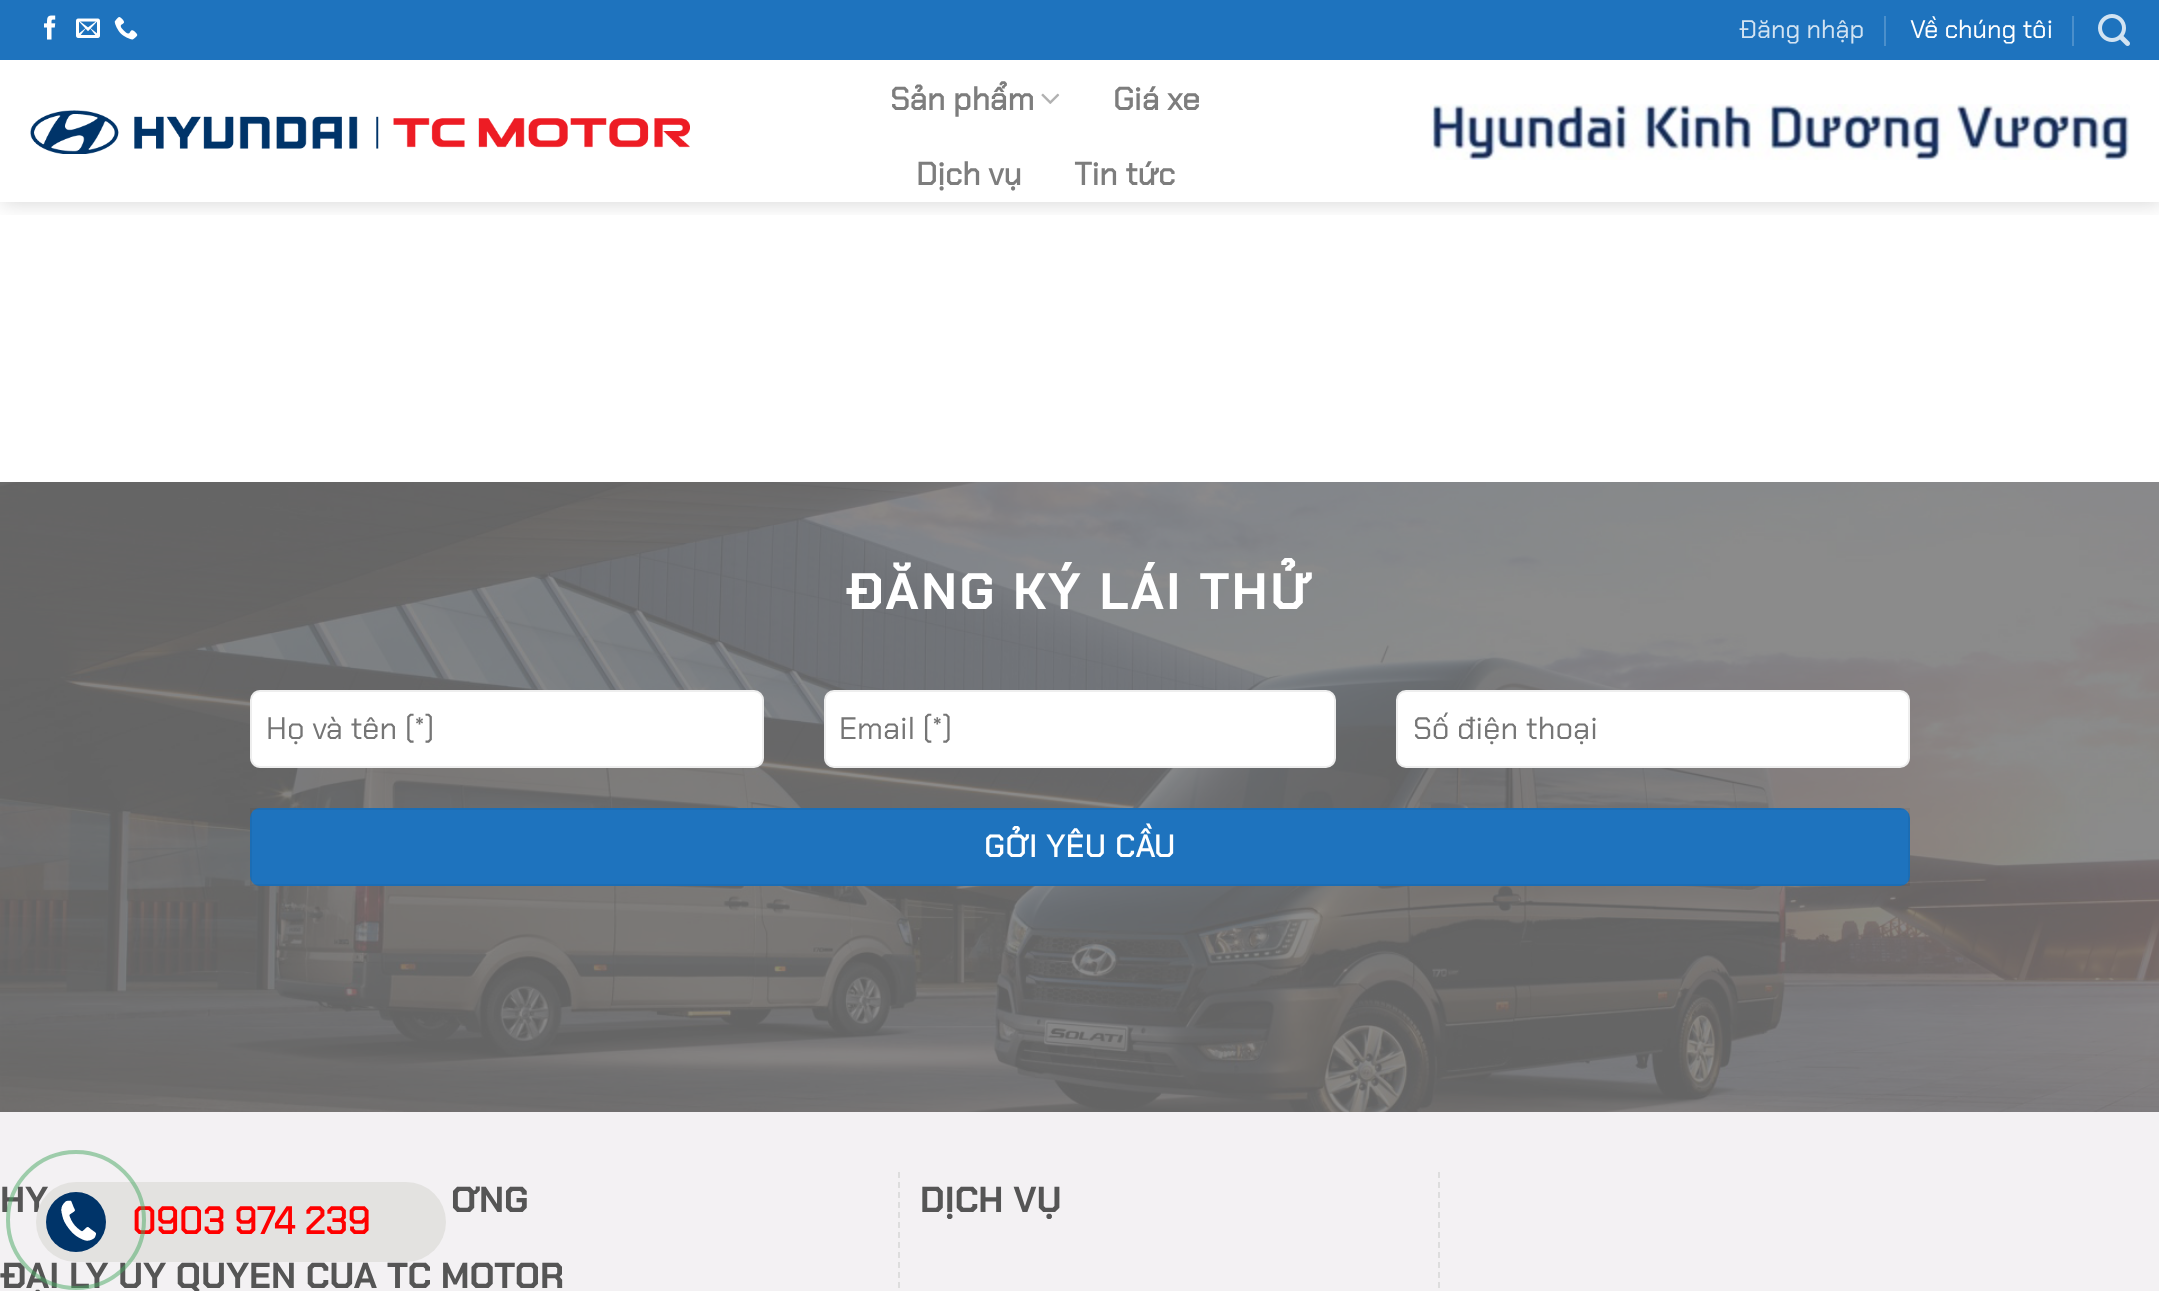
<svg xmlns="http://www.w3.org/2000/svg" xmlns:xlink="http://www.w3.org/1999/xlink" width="2159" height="1291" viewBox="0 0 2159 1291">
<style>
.cls-1{font:25.5px Chakra Petch;fill:#d2e3f2}
.cls-2{font:25.5px Chakra Petch;fill:#ffffff}
.cls-3{font:bold 32px 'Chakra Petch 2';fill:#7d7d7d}
.cls-4{font:bold 51.25px Chakra Petch;letter-spacing:2.5px;fill:#ffffff}
.cls-5{font:31px Chakra Petch;fill:#757575}
.cls-6{font:bold 31px 'Chakra Petch 2';letter-spacing:1px;fill:#ffffff}
.cls-7{font:bold 36px Chakra Petch;fill:#555555}
.cls-8{font:bold 38px 'Chakra Petch 2';fill:#ff0000}
</style>
<defs>
<clipPath id="clip1"><rect x="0" y="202" width="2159" height="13"/></clipPath>
</defs>
<rect width="100%" height="100%" fill="#ffffff"/>
<g clip-path="url(#clip1)">
<rect fill="#000000" fill-opacity="0.15" filter="blur(10px)" x="2" y="2" width="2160" height="202"/>
</g>
<rect fill="#1e73be" x="0" y="0" width="2159" height="60"/>
<image xlink:href="image0.png" x="44" y="15" width="12" height="25"/>
<image xlink:href="image1.png" x="76" y="18" width="24" height="20"/>
<image xlink:href="image2.png" x="114" y="17" width="24" height="23"/>
<rect fill="#4b8fcb" x="1884" y="16" width="2" height="30"/>
<rect fill="#4b8fcb" x="2072" y="16" width="2" height="30"/>
<image xlink:href="image3.png" x="2098" y="14" width="32" height="32"/>
<image xlink:href="image4.png" x="30" y="110" width="660" height="44"/>
<image xlink:href="image5.png" x="1041" y="93" width="19" height="11"/>
<image xlink:href="image6.png" x="1430" y="104" width="700" height="56"/>
<image xlink:href="image7.png" x="0" y="482" width="2159" height="630"/>
<rect fill="#ffffff" stroke="#eeeeee" stroke-width="2" x="251" y="691" width="512" height="76" rx="9"/>
<rect fill="#ffffff" stroke="#eeeeee" stroke-width="2" x="825" y="691" width="510" height="76" rx="9"/>
<rect fill="#ffffff" stroke="#eeeeee" stroke-width="2" x="1397" y="691" width="512" height="76" rx="9"/>
<rect fill="#1e73be" x="250" y="808" width="1660" height="78" rx="10"/>
<rect fill="none" stroke="#000000" stroke-opacity="0.05" stroke-width="2" x="251" y="809" width="1658" height="76"/>
<rect fill="#f3f1f3" x="0" y="1112" width="2159" height="179"/>
<path fill="none" stroke="#dddddd" stroke-width="2" stroke-dasharray="6 4" d="M899 1172V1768"/>
<path fill="none" stroke="#dddddd" stroke-width="2" stroke-dasharray="6 4" d="M1439 1172V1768"/>
<text class="cls-1" x="1739" y="38">Đăng nhập</text>
<text class="cls-2" x="1910" y="38">Về chúng tôi</text>
<text class="cls-3" x="890" y="110">Sản phẩm</text>
<text class="cls-3" x="1113" y="110">Giá xe</text>
<text class="cls-3" x="916" y="185">Dịch vụ</text>
<text class="cls-3" x="1074" y="185">Tin tức</text>
<text class="cls-4" x="846" y="609">ĐĂNG KÝ LÁI THỬ</text>
<text class="cls-5" x="266" y="739">Họ và tên (*)</text>
<text class="cls-5" x="839" y="739">Email (*)</text>
<text class="cls-5" x="1413" y="739">Số điện thoại</text>
<text class="cls-6" x="984" y="857">GỞI YÊU CẦU</text>
<text class="cls-7" x="0" y="1212">HY</text>
<text class="cls-7" x="451" y="1212">ƠNG</text>
<text class="cls-7" x="0" y="1288">ĐẠI LÝ ỦY QUYỀN CỦA TC MOTOR</text>
<text class="cls-7" x="920" y="1212">DỊCH VỤ</text>
<rect fill="#e3e2e0" x="36" y="1182" width="410" height="80" rx="40"/>
<text class="cls-8" x="132" y="1234">0903 974 239</text>
<circle fill="none" stroke="#47a862" stroke-opacity="0.5" stroke-width="4" cx="76" cy="1220" r="68"/>
<circle fill="#003469" cx="76" cy="1222" r="30"/>
<image xlink:href="image8.png" x="61" y="1200" width="35" height="41"/>
</svg>
